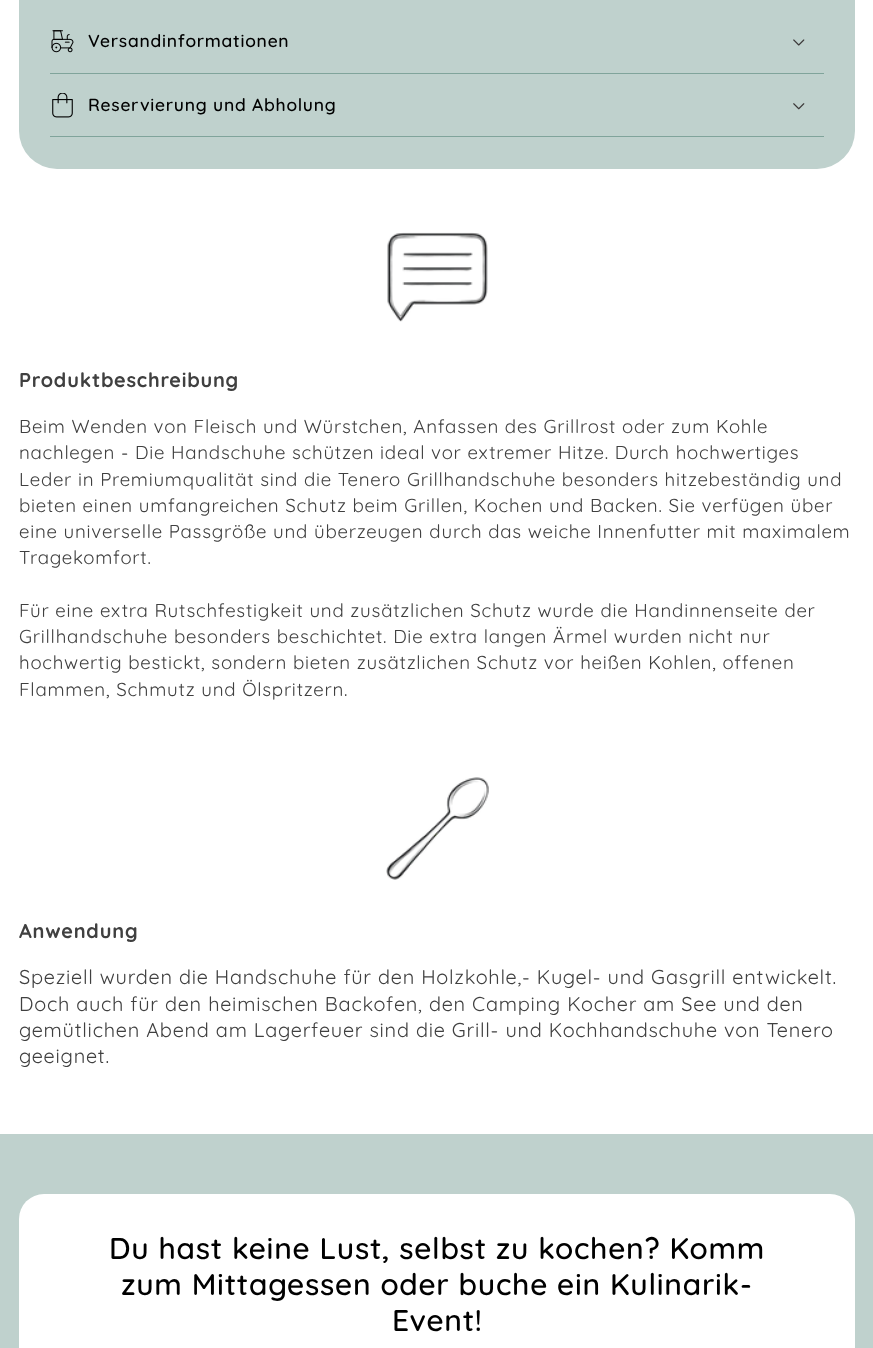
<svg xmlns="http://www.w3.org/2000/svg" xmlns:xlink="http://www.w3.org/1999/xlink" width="873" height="1348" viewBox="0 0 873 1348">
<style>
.cls-1{font:500 17.5px Quicksand;letter-spacing:0.75px;fill:#000000}
.cls-2{font:bold 20px Quicksand;letter-spacing:0.75px;fill:#404040}
.cls-3{font:18.75px Quicksand;letter-spacing:0.75px;fill:#404040}
.cls-4{font:20px Quicksand;letter-spacing:0.75px;fill:#404040}
.cls-5{font:500 30px Quicksand;letter-spacing:0.75px;fill:#000000}
</style>
<rect width="100%" height="100%" fill="#ffffff"/>
<rect fill="#bfd1cd" x="19" y="-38" width="836" height="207" rx="38"/>
<rect fill="#80a49b" x="50" y="73" width="774" height="1"/>
<image xlink:href="image0.png" x="51" y="30" width="23" height="23"/>
<image xlink:href="image1.png" x="793" y="39" width="12" height="7"/>
<rect fill="#80a49b" x="50" y="136" width="774" height="1"/>
<image xlink:href="image2.png" x="52" y="93" width="21" height="25"/>
<image xlink:href="image3.png" x="793" y="103" width="12" height="7"/>
<image xlink:href="image4.png" x="387" y="232" width="101" height="90"/>
<image xlink:href="image5.png" x="386" y="777" width="103" height="103"/>
<rect fill="#bfd1cd" x="0" y="1134" width="873" height="214"/>
<rect fill="#ffffff" x="19" y="1194" width="836" height="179" rx="25"/>
<text class="cls-1" x="88" y="47">Versandinformationen</text>
<text class="cls-1" x="88" y="111">Reservierung und Abholung</text>
<text class="cls-2" x="19" y="387">Produktbeschreibung</text>
<text class="cls-3"><tspan x="19" y="433">Beim Wenden von Fleisch und Würstchen, Anfassen des Grillrost oder zum Kohle</tspan><tspan x="19" y="459">nachlegen - Die Handschuhe schützen ideal vor extremer Hitze. Durch hochwertiges</tspan><tspan x="19" y="486">Leder in Premiumqualität sind die Tenero Grillhandschuhe besonders hitzebeständig und</tspan><tspan x="19" y="512">bieten einen umfangreichen Schutz beim Grillen, Kochen und Backen. Sie verfügen über</tspan><tspan x="19" y="538">eine universelle Passgröße und überzeugen durch das weiche Innenfutter mit maximalem</tspan><tspan x="19" y="564">Tragekomfort.</tspan></text>
<text class="cls-3"><tspan x="19" y="617">Für eine extra Rutschfestigkeit und zusätzlichen Schutz wurde die Handinnenseite der</tspan><tspan x="19" y="643">Grillhandschuhe besonders beschichtet. Die extra langen Ärmel wurden nicht nur</tspan><tspan x="19" y="669">hochwertig bestickt, sondern bieten zusätzlichen Schutz vor heißen Kohlen, offenen</tspan><tspan x="19" y="696">Flammen, Schmutz und Ölspritzern.</tspan></text>
<text class="cls-2" x="19" y="938">Anwendung</text>
<text class="cls-4"><tspan x="19" y="984">Speziell wurden die Handschuhe für den Holzkohle,- Kugel- und Gasgrill entwickelt.</tspan><tspan x="19" y="1011">Doch auch für den heimischen Backofen, den Camping Kocher am See und den</tspan><tspan x="19" y="1037">gemütlichen Abend am Lagerfeuer sind die Grill- und Kochhandschuhe von Tenero</tspan><tspan x="19" y="1063">geeignet.</tspan></text>
<text class="cls-5" x="109" y="1259">Du hast keine Lust, selbst zu kochen? Komm</text>
<text class="cls-5" x="121" y="1295">zum Mittagessen oder buche ein Kulinarik-</text>
<text class="cls-5" x="392" y="1331">Event!</text>
</svg>
